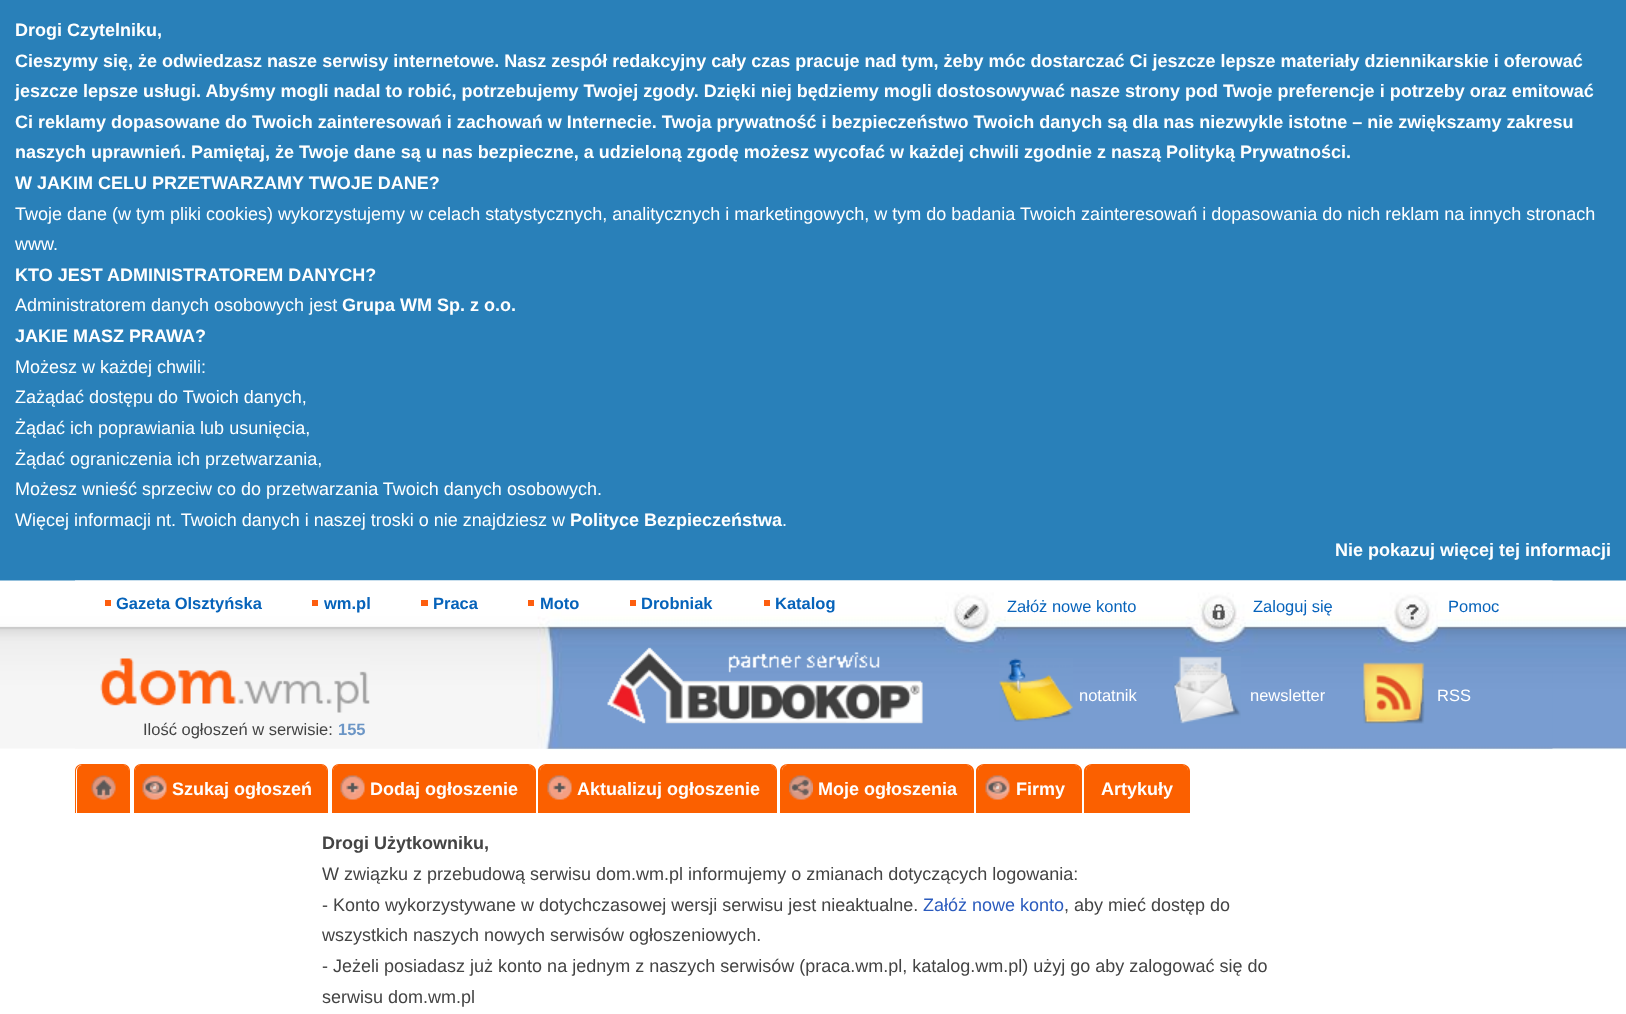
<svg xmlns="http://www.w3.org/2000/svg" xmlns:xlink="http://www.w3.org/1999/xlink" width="1626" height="1014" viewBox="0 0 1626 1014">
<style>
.cls-1{font:bold 18px Liberation Sans;fill:#ffffff}
.cls-2{font:18px Liberation Sans;fill:#ffffff}
.cls-3{font:bold 16.5px Liberation Sans;fill:#0663ba}
.cls-4{font:16.5px Liberation Sans;fill:#0663ba}
.cls-5{font:16.5px Liberation Sans;fill:#ffffff}
.cls-6{font:16.5px Liberation Sans;fill:#444444}
.cls-7{font:bold 16.5px Liberation Sans;fill:#6c96c6}
.cls-8{font:bold 18px Liberation Sans;fill:#444444}
.cls-9{font:18px Liberation Sans;fill:#444444}
.cls-10{font:18px Liberation Sans;fill:#2c5cbe}
</style>
<rect width="100%" height="100%" fill="#2980b9"/>
<rect fill="#ffffff" x="0" y="750" width="1626" height="264"/>
<image xlink:href="image0.png" x="0" y="580" width="1626" height="170"/>
<image xlink:href="image1.png" x="75" y="580" width="1478" height="169"/>
<rect fill="#fd5e0f" x="105" y="600" width="6" height="6"/>
<rect fill="#fd5e0f" x="312" y="600" width="6" height="6"/>
<rect fill="#fd5e0f" x="421" y="600" width="7" height="6"/>
<rect fill="#fd5e0f" x="528" y="600" width="6" height="6"/>
<rect fill="#fd5e0f" x="630" y="600" width="6" height="6"/>
<rect fill="#fd5e0f" x="764" y="600" width="6" height="6"/>
<image xlink:href="image2.png" x="100" y="658" width="270" height="55"/>
<image xlink:href="image3.png" x="607" y="647" width="316" height="77"/>
<image xlink:href="image4.png" x="999" y="658" width="74" height="64"/>
<image xlink:href="image5.png" x="1173" y="656" width="68" height="68"/>
<image xlink:href="image6.png" x="1363" y="662" width="62" height="62"/>
<path fill="#fb6000" d="M83 765H123C126.5 765 129 767.5 129 771V813H77V771C77 767.5 79.5 765 83 765Z"/>
<image xlink:href="image7.png" x="91" y="775" width="25" height="25"/>
<path fill="#fb6000" fill-rule="evenodd" d="M82 764H123C127 764 130 767 130 771V813H75V771C75 767 78 764 82 764ZM82 765H123C126 765 129 768 129 771V813H76V771C76 768 79 765 82 765Z"/>
<path fill="#fb6000" d="M141 765H321C324.5 765 327 767.5 327 771V813H135V771C135 767.5 137.5 765 141 765Z"/>
<image xlink:href="image8.png" x="142" y="775" width="25" height="25"/>
<path fill="#fb6000" fill-rule="evenodd" d="M141 764H321C325 764 328 767 328 771V813H134V771C134 767 137 764 141 764ZM141 765H321C324 765 327 768 327 771V813H135V771C135 768 138 765 141 765Z"/>
<path fill="#fb6000" d="M339 765H528C531.5 765 534 767.5 534 771V813H333V771C333 767.5 335.5 765 339 765Z"/>
<image xlink:href="image9.png" x="340" y="775" width="25" height="25"/>
<path fill="#fb6000" fill-rule="evenodd" d="M339 764H528C532 764 536 767 536 771V813H332V771C332 767 335 764 339 764ZM339 765H528C531 765 534 768 534 771V813H333V771C333 768 336 765 339 765Z"/>
<path fill="#fb6000" d="M546 765H770C773.5 765 776 767.5 776 771V813H540V771C540 767.5 542.5 765 546 765Z"/>
<image xlink:href="image10.png" x="547" y="775" width="25" height="25"/>
<path fill="#fb6000" fill-rule="evenodd" d="M546 764H770C774 764 777 767 777 771V813H538V771C538 767 542 764 546 764ZM546 765H770C773 765 776 768 776 771V813H540V771C540 768 543 765 546 765Z"/>
<path fill="#fb6000" d="M788 765H966C969.5 765 972 767.5 972 771V813H782V771C782 767.5 784.5 765 788 765Z"/>
<image xlink:href="image11.png" x="789" y="775" width="24" height="25"/>
<path fill="#fb6000" fill-rule="evenodd" d="M788 764H966C970 764 974 767 974 771V813H780V771C780 767 783 764 788 764ZM788 765H966C969 765 972 768 972 771V813H782V771C782 768 784 765 788 765Z"/>
<path fill="#fb6000" d="M984 765H1074C1077.5 765 1080 767.5 1080 771V813H978V771C978 767.5 980.5 765 984 765Z"/>
<image xlink:href="image8.png" x="985" y="775" width="25" height="25"/>
<path fill="#fb6000" fill-rule="evenodd" d="M984 764H1074C1078 764 1082 767 1082 771V813H976V771C976 767 980 764 984 764ZM984 765H1074C1077 765 1080 768 1080 771V813H978V771C978 768 981 765 984 765Z"/>
<path fill="#fb6000" d="M1092 765H1182C1185.5 765 1188 767.5 1188 771V813H1086V771C1086 767.5 1088.5 765 1092 765Z"/>
<path fill="#fb6000" fill-rule="evenodd" d="M1092 764H1182C1186 764 1190 767 1190 771V813H1084V771C1084 767 1088 764 1092 764ZM1092 765H1182C1185 765 1188 768 1188 771V813H1086V771C1086 768 1089 765 1092 765Z"/>
<text class="cls-1"><tspan x="15" y="36">Drogi Czytelniku,</tspan><tspan x="15" y="67">Cieszymy się, że odwiedzasz nasze serwisy internetowe. Nasz zespół redakcyjny cały czas pracuje nad tym, żeby móc dostarczać Ci jeszcze lepsze materiały dziennikarskie i oferować</tspan><tspan x="15" y="97">jeszcze lepsze usługi. Abyśmy mogli nadal to robić, potrzebujemy Twojej zgody. Dzięki niej będziemy mogli dostosowywać nasze strony pod Twoje preferencje i potrzeby oraz emitować</tspan><tspan x="15" y="128">Ci reklamy dopasowane do Twoich zainteresowań i zachowań w Internecie. Twoja prywatność i bezpieczeństwo Twoich danych są dla nas niezwykle istotne – nie zwiększamy zakresu</tspan><tspan x="15" y="158">naszych uprawnień. Pamiętaj, że Twoje dane są u nas bezpieczne, a udzieloną zgodę możesz wycofać w każdej chwili zgodnie z naszą Polityką Prywatności.</tspan><tspan x="15" y="189">W JAKIM CELU PRZETWARZAMY TWOJE DANE?</tspan></text>
<text class="cls-2"><tspan x="15" y="220">Twoje dane (w tym pliki cookies) wykorzystujemy w celach statystycznych, analitycznych i marketingowych, w tym do badania Twoich zainteresowań i dopasowania do nich reklam na innych stronach</tspan><tspan x="15" y="250">www.</tspan></text>
<text class="cls-1" x="15" y="281">KTO JEST ADMINISTRATOREM DANYCH?</text>
<text class="cls-2" x="15" y="311">Administratorem danych osobowych jest</text>
<text class="cls-1" x="342" y="311">Grupa WM Sp. z o.o.</text>
<text class="cls-1" x="15" y="342">JAKIE MASZ PRAWA?</text>
<text class="cls-2"><tspan x="15" y="373">Możesz w każdej chwili:</tspan><tspan x="15" y="403">Zażądać dostępu do Twoich danych,</tspan><tspan x="15" y="434">Żądać ich poprawiania lub usunięcia,</tspan><tspan x="15" y="465">Żądać ograniczenia ich przetwarzania,</tspan><tspan x="15" y="495">Możesz wnieść sprzeciw co do przetwarzania Twoich danych osobowych.</tspan><tspan x="15" y="526">Więcej informacji nt. Twoich danych i naszej troski o nie znajdziesz w</tspan></text>
<text class="cls-1" x="570" y="526">Polityce Bezpieczeństwa</text>
<text class="cls-2" x="782" y="526">.</text>
<text class="cls-1" x="1335" y="556">Nie pokazuj więcej tej informacji</text>
<text class="cls-3" x="116" y="609">Gazeta Olsztyńska</text>
<text class="cls-3" x="324" y="609">wm.pl</text>
<text class="cls-3" x="433" y="609">Praca</text>
<text class="cls-3" x="540" y="609">Moto</text>
<text class="cls-3" x="641" y="609">Drobniak</text>
<text class="cls-3" x="775" y="609">Katalog</text>
<text class="cls-4" x="1007" y="612">Załóż nowe konto</text>
<text class="cls-4" x="1253" y="612">Zaloguj się</text>
<text class="cls-4" x="1448" y="612">Pomoc</text>
<text class="cls-5" x="1079" y="701">notatnik</text>
<text class="cls-5" x="1250" y="701">newsletter</text>
<text class="cls-5" x="1437" y="701">RSS</text>
<text class="cls-6" x="143" y="735">Ilość ogłoszeń w serwisie:</text>
<text class="cls-7" x="338" y="735">155</text>
<text class="cls-1" x="172" y="795">Szukaj ogłoszeń</text>
<text class="cls-1" x="370" y="795">Dodaj ogłoszenie</text>
<text class="cls-1" x="577" y="795">Aktualizuj ogłoszenie</text>
<text class="cls-1" x="818" y="795">Moje ogłoszenia</text>
<text class="cls-1" x="1016" y="795">Firmy</text>
<text class="cls-1" x="1101" y="795">Artykuły</text>
<text class="cls-8" x="322" y="849">Drogi Użytkowniku,</text>
<text class="cls-9"><tspan x="322" y="880">W związku z przebudową serwisu dom.wm.pl informujemy o zmianach dotyczących logowania:</tspan><tspan x="322" y="911">- Konto wykorzystywane w dotychczasowej wersji serwisu jest nieaktualne.</tspan></text>
<text class="cls-10" x="923" y="911">Załóż nowe konto</text>
<text class="cls-9" x="1064" y="911">, aby mieć dostęp do</text>
<text class="cls-9"><tspan x="322" y="941">wszystkich naszych nowych serwisów ogłoszeniowych.</tspan><tspan x="322" y="972">- Jeżeli posiadasz już konto na jednym z naszych serwisów (praca.wm.pl, katalog.wm.pl) użyj go aby zalogować się do</tspan><tspan x="322" y="1003">serwisu dom.wm.pl</tspan></text>
</svg>
